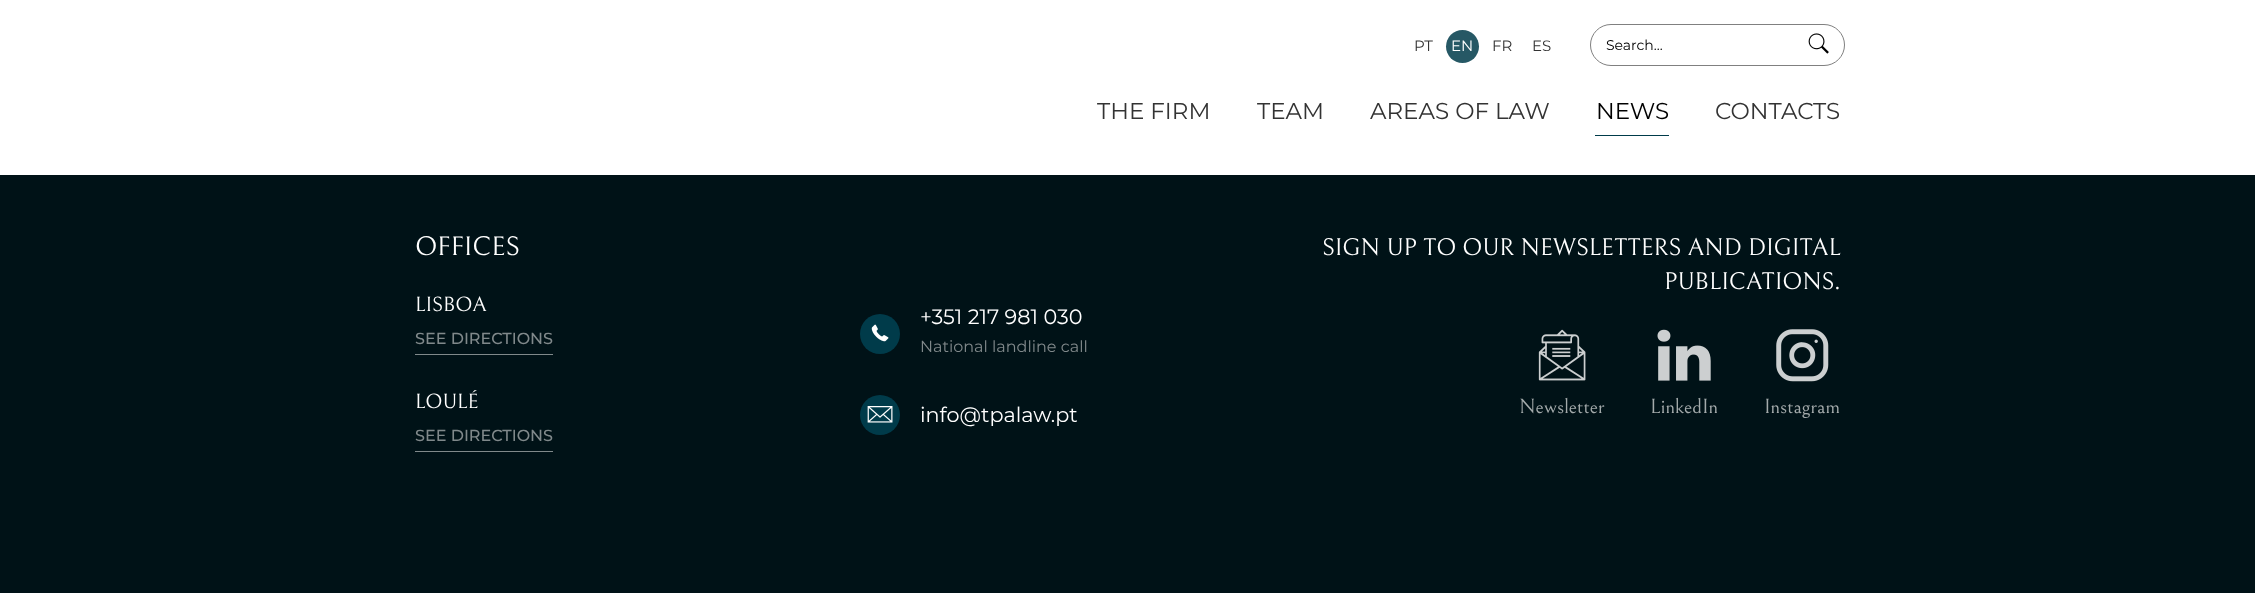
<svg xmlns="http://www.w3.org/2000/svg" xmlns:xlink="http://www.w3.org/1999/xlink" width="2255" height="593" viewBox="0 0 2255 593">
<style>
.cls-1{font:15px Montserrat;fill:#333333}
.cls-2{font:15px Montserrat;fill:#ffffff}
.cls-3{font:14px Montserrat;fill:#000000}
.cls-4{font:23px Montserrat;fill:#333333}
.cls-5{font:23px Montserrat;fill:#000000}
.cls-6{font:27px Bellefair;fill:#ffffff}
.cls-7{font:20.75px Bellefair;fill:#ffffff}
.cls-8{font:500 16px Montserrat;fill:#80898b}
.cls-9{font:20.75px Montserrat;fill:#ffffff}
.cls-10{font:16px Montserrat;fill:#80898b}
.cls-11{font:24.25px Bellefair;fill:#ffffff}
.cls-12{font:20.75px Bellefair;fill:#a3aaab}
</style>
<rect width="100%" height="100%" fill="#001217"/>
<rect fill="#ffffff" x="0" y="0" width="2255" height="175"/>
<circle fill="#265865" cx="1462.5" cy="46.5" r="16.5"/>
<rect fill="none" stroke="#808080" x="1590.5" y="24.5" width="254" height="41" rx="20.5"/>
<image xlink:href="image0.png" x="1808" y="33" width="21" height="21"/>
<rect fill="#003b4a" x="1595" y="135" width="74" height="1"/>
<rect fill="#80898b" x="415" y="354" width="138" height="1"/>
<rect fill="#80898b" x="415" y="451" width="138" height="1"/>
<circle fill="#003b4a" cx="880" cy="334" r="20"/>
<image xlink:href="image1.png" x="871" y="324" width="18" height="18"/>
<circle fill="#003b4a" cx="880" cy="415" r="20"/>
<image xlink:href="image2.png" x="867" y="406" width="26" height="17"/>
<image xlink:href="image3.png" x="1538" y="329" width="48" height="52"/>
<image xlink:href="image4.png" x="1657" y="329" width="54" height="52"/>
<image xlink:href="image5.png" x="1776" y="329" width="53" height="53"/>
<text class="cls-1" x="1414" y="51">PT</text>
<text class="cls-2" x="1451" y="51">EN</text>
<text class="cls-1" x="1492" y="51">FR</text>
<text class="cls-1" x="1532" y="51">ES</text>
<text class="cls-3" x="1606" y="50">Search...</text>
<text class="cls-4" x="1097" y="119">THE FIRM</text>
<text class="cls-4" x="1257" y="119">TEAM</text>
<text class="cls-4" x="1370" y="119">AREAS OF LAW</text>
<text class="cls-5" x="1596" y="119">NEWS</text>
<text class="cls-4" x="1715" y="119">CONTACTS</text>
<text class="cls-6" x="415" y="255">OFFICES</text>
<text class="cls-7" x="415" y="311">LISBOA</text>
<text class="cls-8" x="415" y="344">SEE DIRECTIONS</text>
<text class="cls-7" x="415" y="408">LOULÉ</text>
<text class="cls-8" x="415" y="441">SEE DIRECTIONS</text>
<text class="cls-9" x="920" y="324">+351 217 981 030</text>
<text class="cls-10" x="920" y="352">National landline call</text>
<text class="cls-9" x="920" y="422">info@tpalaw.pt</text>
<text class="cls-11" x="1322" y="255">SIGN UP TO OUR NEWSLETTERS AND DIGITAL</text>
<text class="cls-11" x="1664" y="289">PUBLICATIONS.</text>
<text class="cls-12" x="1519" y="413">Newsletter</text>
<text class="cls-12" x="1650" y="413">LinkedIn</text>
<text class="cls-12" x="1764" y="413">Instagram</text>
</svg>
